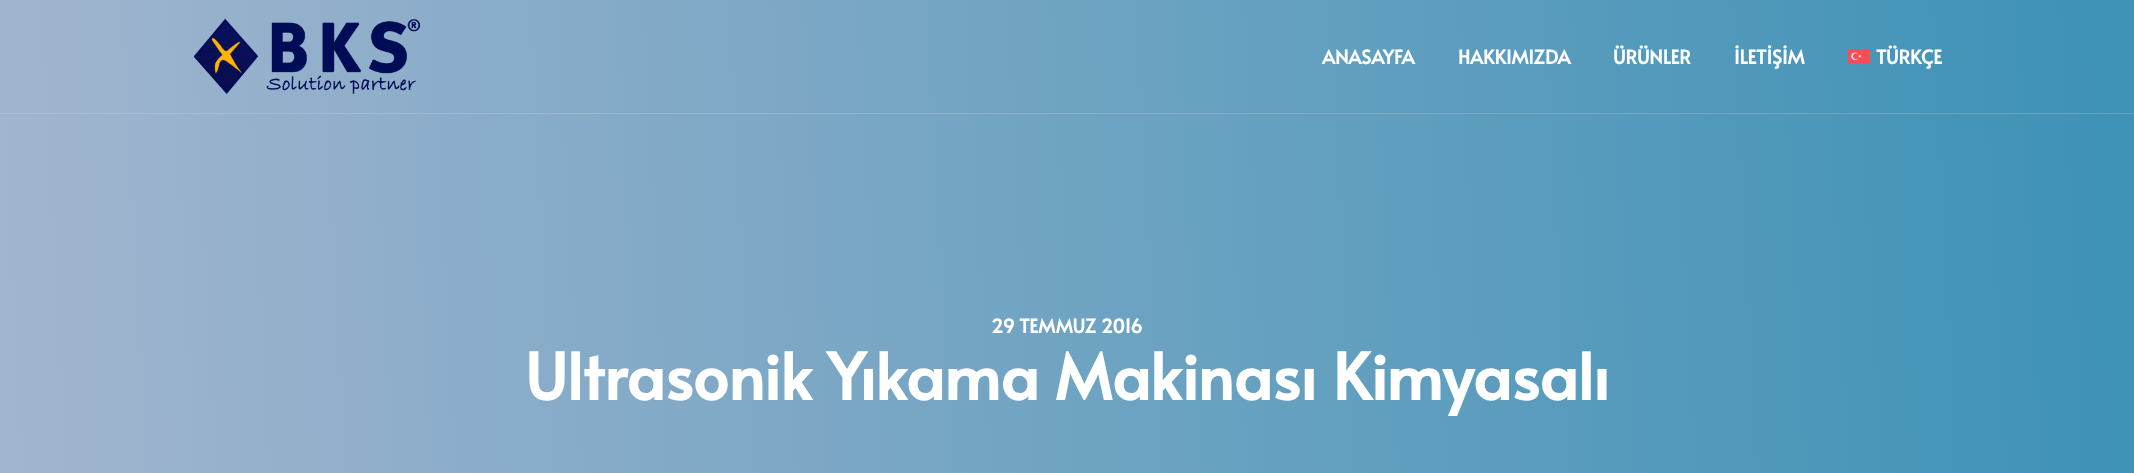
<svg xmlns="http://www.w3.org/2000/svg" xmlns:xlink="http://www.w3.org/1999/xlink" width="2134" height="473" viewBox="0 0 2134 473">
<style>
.cls-1{font:bold 19px Alata;fill:#ffffff}
.cls-2{font:bold 63.75px Alata;fill:#ffffff}
</style>
<defs>
<linearGradient id="g1" gradientUnits="userSpaceOnUse" x1="-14" y1="389" x2="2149" y2="275"><stop offset="0" stop-color="#a2b5cf"/><stop offset="1" stop-color="#3d92b6"/></linearGradient>
<linearGradient id="g2" gradientUnits="userSpaceOnUse" x1="-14" y1="389" x2="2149" y2="275"><stop offset="0" stop-color="#b0c0d6"/><stop offset="1" stop-color="#5aa2c1"/></linearGradient>
</defs>
<rect width="100%" height="100%" fill="#ffffff"/>
<rect fill="url(#g1)" x="0" y="0" width="2134" height="473"/>
<rect fill="url(#g2)" x="0" y="113" width="2134" height="1"/>
<image xlink:href="image0.png" x="193" y="18" width="227" height="76"/>
<image xlink:href="image1.png" x="1848" y="49" width="22" height="15"/>
<text class="cls-1" x="1322" y="64">ANASAYFA</text>
<text class="cls-1" x="1458" y="64">HAKKIMIZDA</text>
<text class="cls-1" x="1613" y="64">ÜRÜNLER</text>
<text class="cls-1" x="1734" y="64">İLETİŞİM</text>
<text class="cls-1" x="1876" y="64">TÜRKÇE</text>
<text class="cls-1" x="991" y="333">29 TEMMUZ 2016</text>
<text class="cls-2" x="525" y="400">Ultrasonik Yıkama Makinası Kimyasalı</text>
</svg>
